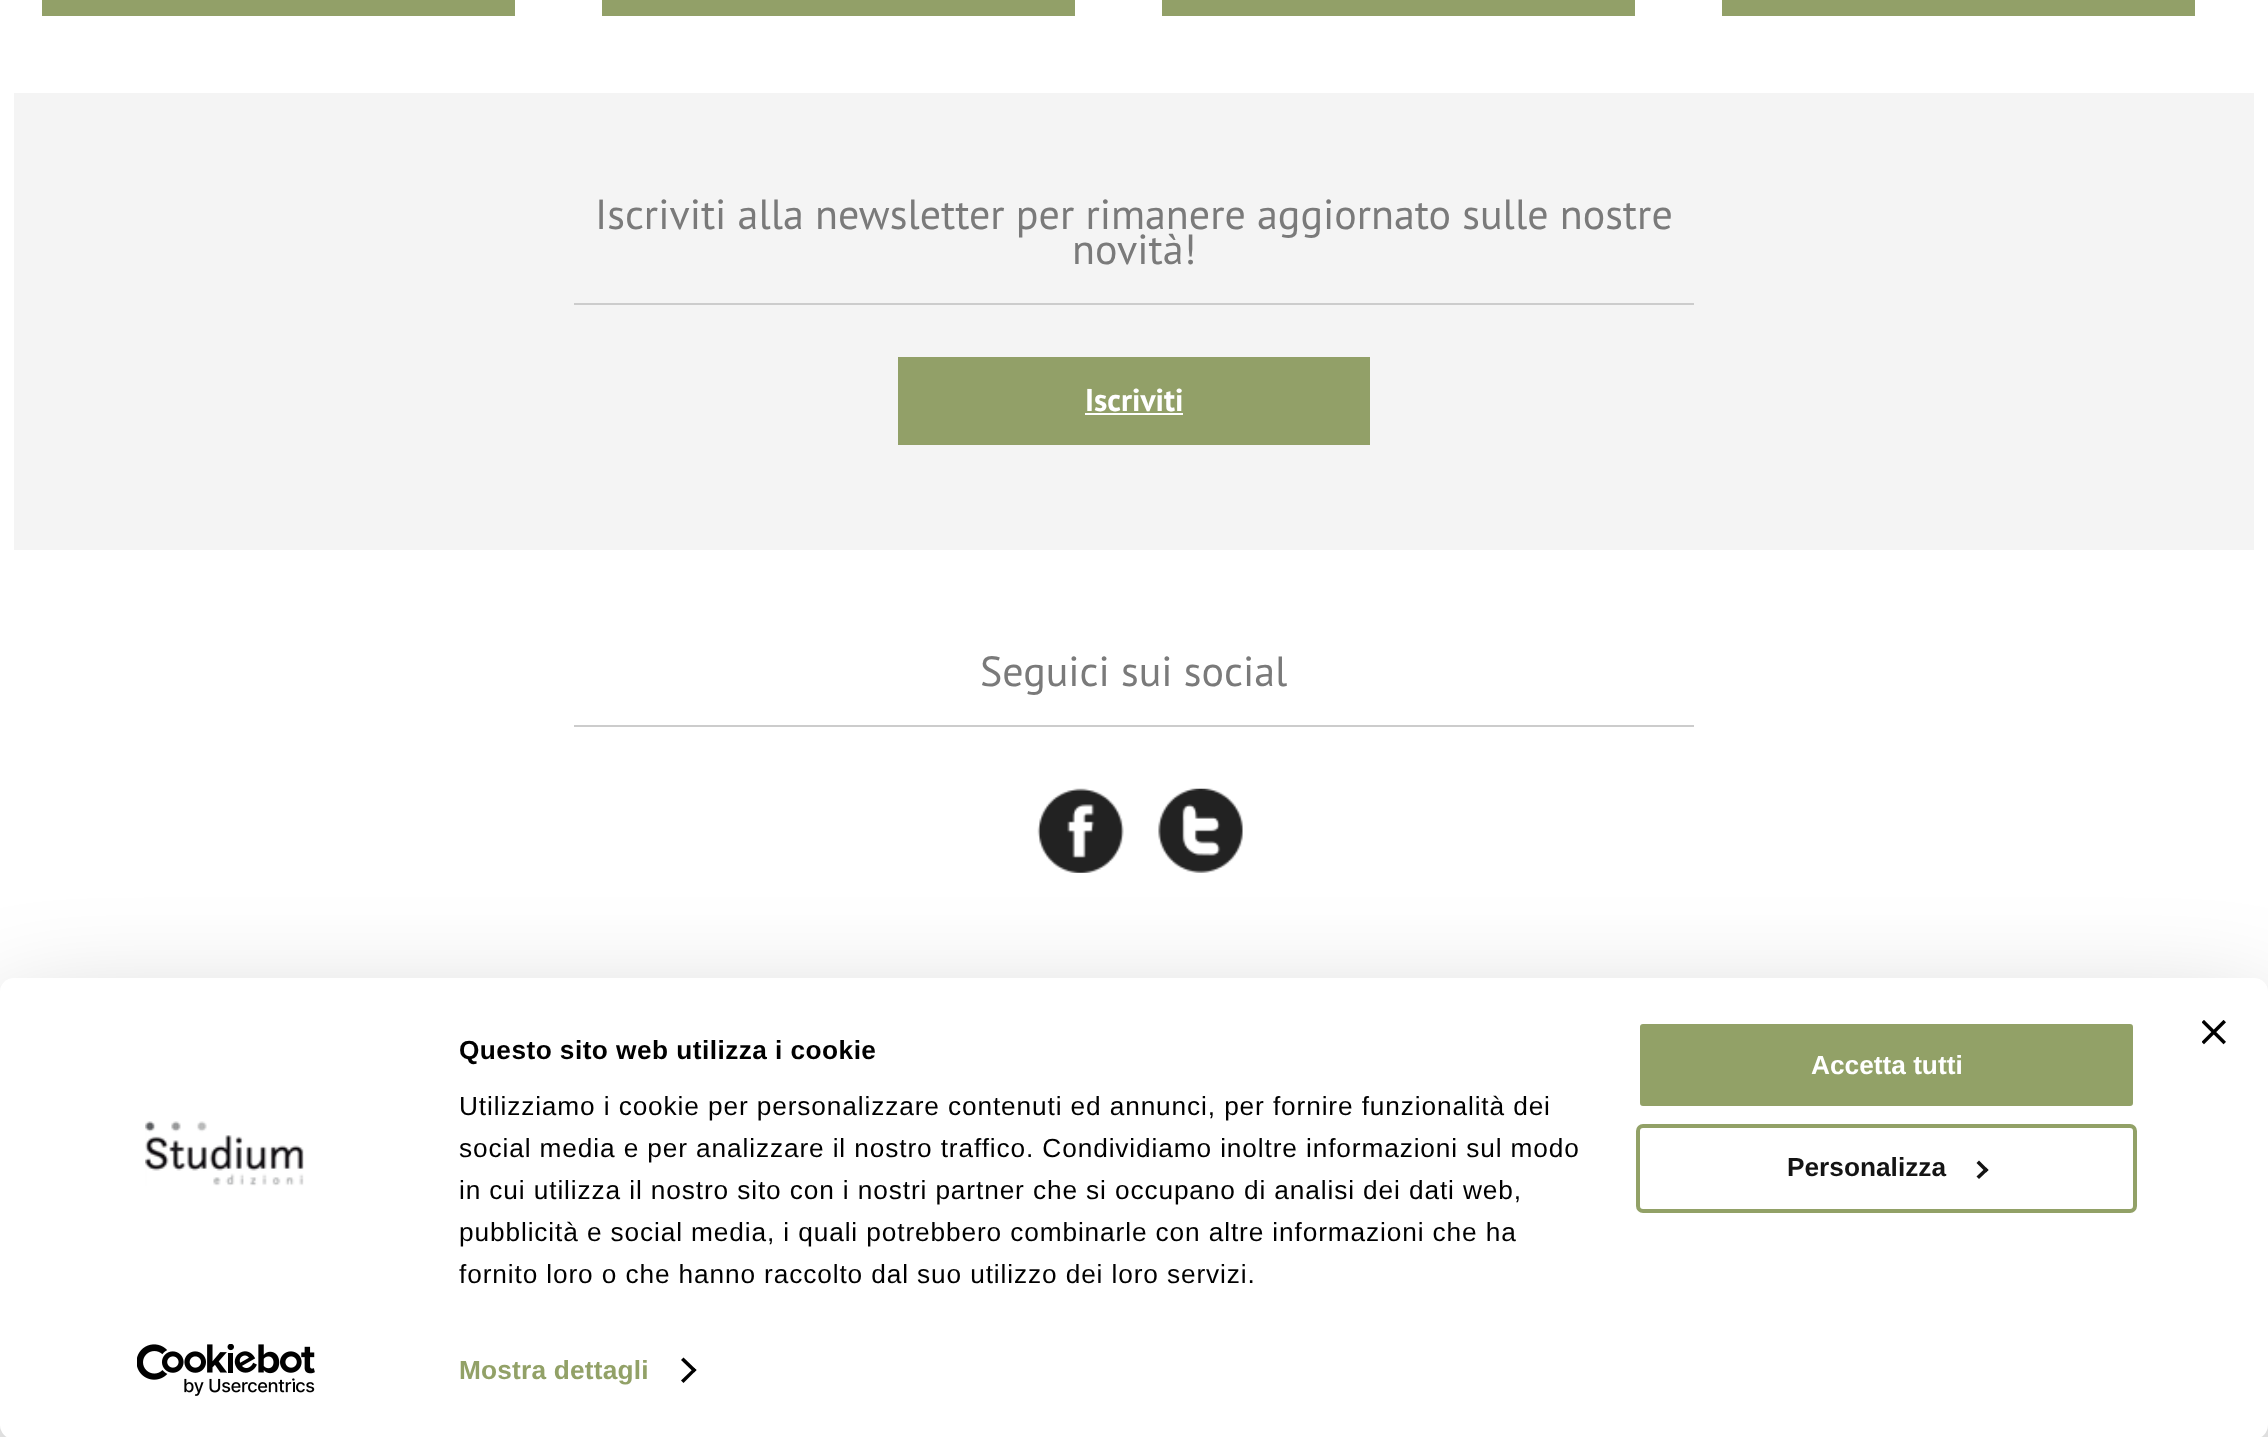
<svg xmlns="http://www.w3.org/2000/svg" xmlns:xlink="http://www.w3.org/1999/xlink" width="2268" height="1437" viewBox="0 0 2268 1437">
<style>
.cls-1{font:42px PT Sans;fill:#7a7a7a}
.cls-2{font:bold 31.5px PT Sans;fill:#ffffff}
.cls-3{font:bold 26.25px Liberation Sans;letter-spacing:0.45px;fill:#000000}
.cls-4{font:26.25px Liberation Sans;letter-spacing:0.88px;fill:#000000}
.cls-5{font:bold 26.25px Liberation Sans;letter-spacing:0.2px;fill:#92a167}
.cls-6{font:bold 26.25px Liberation Sans;fill:#ffffff}
.cls-7{font:bold 26.25px Liberation Sans;fill:#141414}
</style>
<rect width="100%" height="100%" fill="#ffffff"/>
<rect fill="#92a068" x="42" y="0" width="473" height="16"/>
<rect fill="#92a068" x="602" y="0" width="473" height="16"/>
<rect fill="#92a068" x="1162" y="0" width="473" height="16"/>
<rect fill="#92a068" x="1722" y="0" width="473" height="16"/>
<rect fill="#f4f4f4" x="14" y="93" width="2240" height="457"/>
<rect fill="#cccccc" x="574" y="303" width="1120" height="2"/>
<rect fill="#92a068" x="898" y="357" width="472" height="88"/>
<rect fill="#ffffff" x="1085" y="413" width="98" height="2"/>
<rect fill="#cccccc" x="574" y="725" width="1120" height="2"/>
<image xlink:href="image0.png" x="1037" y="788" width="87" height="85"/>
<image xlink:href="image1.png" x="1158" y="788" width="85" height="85"/>
<rect fill="#000000" fill-opacity="0.3" filter="blur(61px)" x="0" y="1031" width="2268" height="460" rx="14"/>
<rect fill="#ffffff" x="0" y="978" width="2268" height="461" rx="14"/>
<image xlink:href="image2.png" x="2202" y="1020" width="24" height="25"/>
<image xlink:href="image3.png" x="145" y="1121" width="159" height="65"/>
<image xlink:href="image4.png" x="137" y="1344" width="178" height="52"/>
<path fill="#000000" d="M683.5 1357.5L696.5 1370L694 1372.5L681 1360Z"/>
<path fill="#000000" d="M694 1368L696.5 1370L683.5 1383L681 1380.5Z"/>
<rect fill="#92a167" stroke="#ffffff" stroke-width="4" x="1638" y="1022" width="497" height="86" rx="5"/>
<rect fill="none" stroke="#92a167" stroke-width="4" x="1638" y="1126" width="497" height="85" rx="5"/>
<path fill="#141414" d="M1979 1160.5L1988.5 1170L1986 1172.5L1976.5 1163Z"/>
<path fill="#141414" d="M1986 1167.5L1988.5 1170L1979 1179L1976.5 1176.5Z"/>
<text class="cls-1" x="595" y="229">Iscriviti alla newsletter per rimanere aggiornato sulle nostre</text>
<text class="cls-1" x="1072" y="264">novità!</text>
<text class="cls-2" x="1085" y="411">Iscriviti</text>
<text class="cls-1" x="980" y="686">Seguici sui social</text>
<text class="cls-3" x="459" y="1059">Questo sito web utilizza i cookie</text>
<text class="cls-4"><tspan x="459" y="1115">Utilizziamo i cookie per personalizzare contenuti ed annunci, per fornire funzionalità dei</tspan><tspan x="459" y="1157">social media e per analizzare il nostro traffico. Condividiamo inoltre informazioni sul modo</tspan><tspan x="459" y="1199">in cui utilizza il nostro sito con i nostri partner che si occupano di analisi dei dati web,</tspan><tspan x="459" y="1241">pubblicità e social media, i quali potrebbero combinarle con altre informazioni che ha</tspan><tspan x="459" y="1283">fornito loro o che hanno raccolto dal suo utilizzo dei loro servizi.</tspan></text>
<text class="cls-5" x="459" y="1379">Mostra dettagli</text>
<text class="cls-6" x="1811" y="1074">Accetta tutti</text>
<text class="cls-7" x="1787" y="1176">Personalizza</text>
</svg>
